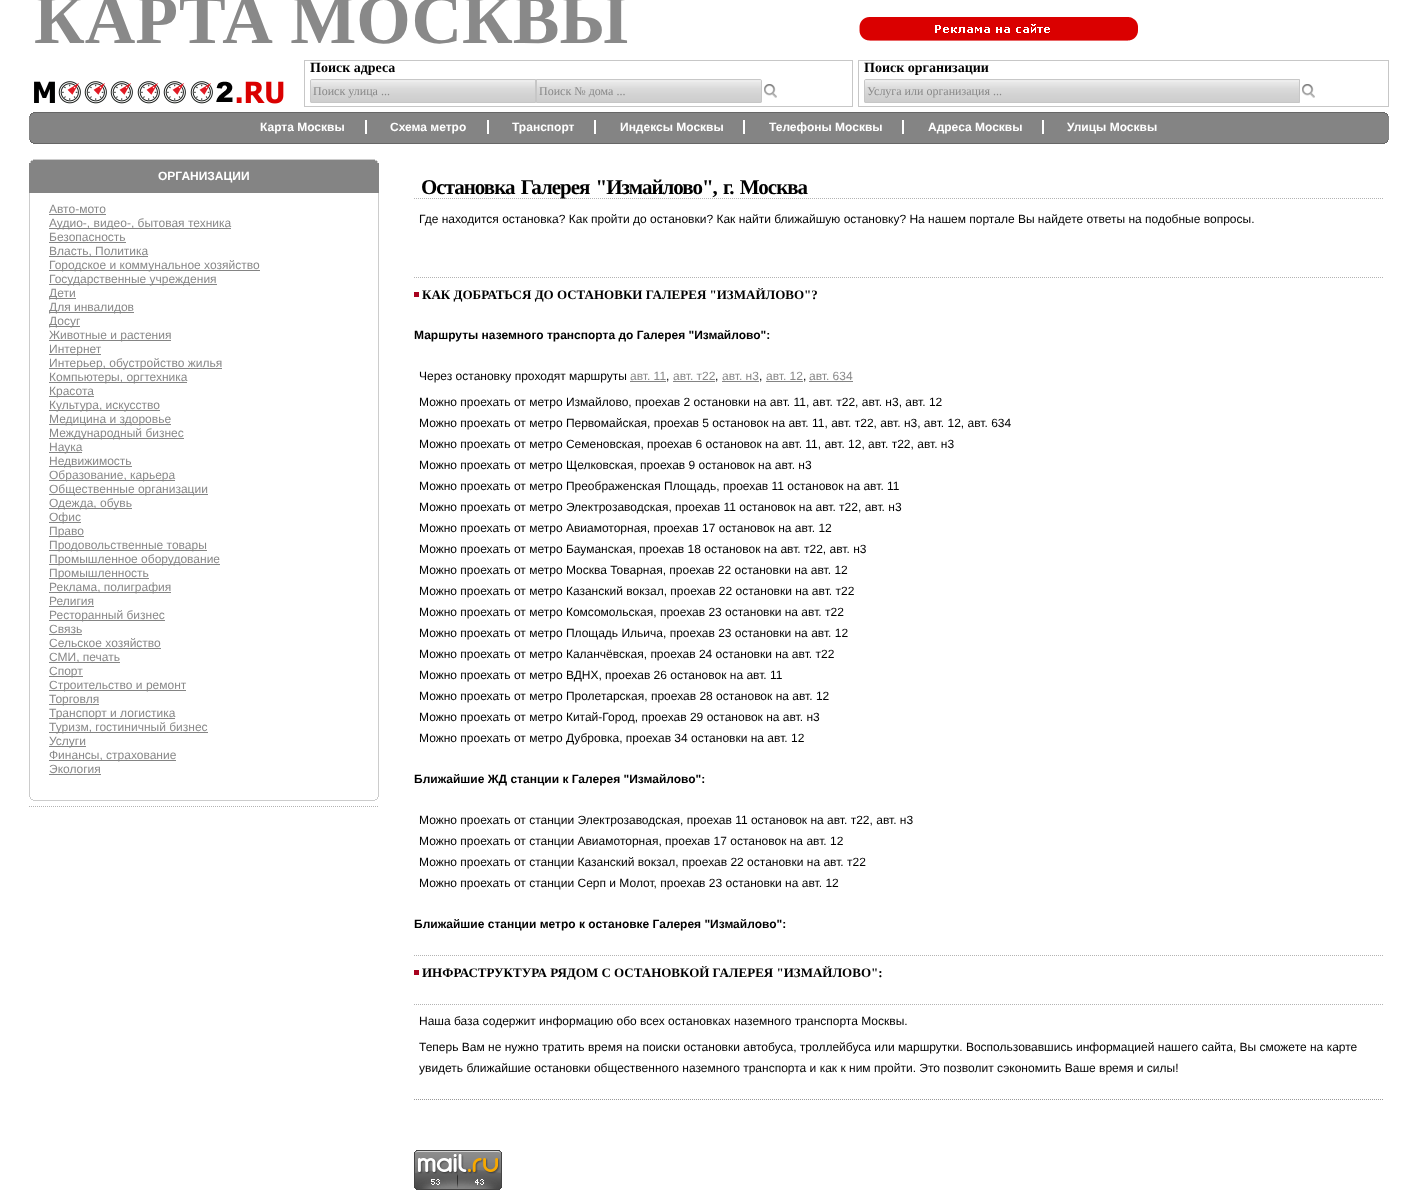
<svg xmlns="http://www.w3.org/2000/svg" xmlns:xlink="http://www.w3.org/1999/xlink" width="1418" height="1201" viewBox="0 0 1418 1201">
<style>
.cls-1{font:bold 70px Liberation Serif;fill:#898989}
.cls-2{font:bold 14px Liberation Serif;fill:#000000}
.cls-3{font:12px Liberation Serif;fill:#898989}
.cls-4{font:bold 12px Liberation Sans;fill:#ffffff}
.cls-5{font:12px Liberation Sans;fill:#898989}
.cls-6{font:bold 21px Liberation Serif;letter-spacing:-1px;fill:#000000}
.cls-7{font:12px Liberation Sans;fill:#000000}
.cls-8{font:bold 13px Liberation Serif;fill:#000000}
.cls-9{font:bold 12px Liberation Sans;fill:#000000}
</style>
<rect width="100%" height="100%" fill="#ffffff"/>
<image xlink:href="image0.png" x="34" y="81" width="250" height="23"/>
<rect fill="none" stroke="#c7c7c7" x="304.5" y="60.5" width="548" height="46"/>
<path fill="#ededed" d="M312 79H536V103H312C311 103 310 102 310 101V81C310 80 311 79 312 79Z"/>
<image xlink:href="image1.png" x="310" y="82" width="225" height="21"/>
<path fill="none" stroke="#c7c7c7" d="M312 79.5H535.5V102.5H312C311 102.5 310.5 102 310.5 101V81C310.5 80 311 79.5 312 79.5Z"/>
<path fill="#ededed" d="M536 79H760C761 79 762 80 762 81V101C762 102 761 103 760 103H536Z"/>
<image xlink:href="image2.png" x="537" y="82" width="225" height="21"/>
<path fill="none" stroke="#c7c7c7" d="M536.5 79.5H760C761 79.5 761.5 80 761.5 81V101C761.5 102 761 102.5 760 102.5H536.5Z"/>
<image xlink:href="image3.png" x="764" y="84" width="13" height="14"/>
<rect fill="none" stroke="#c7c7c7" x="858.5" y="60.5" width="530" height="46"/>
<path fill="#ededed" d="M866 79H1300V103H866C865 103 864 102 864 101V81C864 80 865 79 866 79Z"/>
<image xlink:href="image4.png" x="864" y="82" width="435" height="21"/>
<path fill="none" stroke="#c7c7c7" d="M866 79.5H1299.5V102.5H866C865 102.5 864.5 102 864.5 101V81C864.5 80 865 79.5 866 79.5Z"/>
<image xlink:href="image3.png" x="1302" y="84" width="13" height="14"/>
<image xlink:href="image5.png" x="859" y="17" width="279" height="24"/>
<rect fill="#666666" x="33" y="112" width="1352" height="1"/>
<rect fill="#848484" x="31" y="113" width="1356" height="1"/>
<rect fill="#666666" x="1385" y="113" width="2" height="1"/>
<rect fill="#666666" x="31" y="113" width="2" height="1"/>
<rect fill="#848484" x="30" y="114" width="1358" height="2"/>
<rect fill="#666666" x="1387" y="114" width="1" height="2"/>
<rect fill="#666666" x="30" y="114" width="1" height="2"/>
<rect fill="#848484" x="29" y="116" width="1360" height="24"/>
<rect fill="#ffffff" x="365" y="120" width="2" height="14"/>
<rect fill="#ffffff" x="487" y="120" width="2" height="14"/>
<rect fill="#ffffff" x="594" y="120" width="2" height="14"/>
<rect fill="#ffffff" x="743" y="120" width="2" height="14"/>
<rect fill="#ffffff" x="902" y="120" width="2" height="14"/>
<rect fill="#ffffff" x="1042" y="120" width="2" height="14"/>
<rect fill="#848484" x="30" y="140" width="1358" height="2"/>
<rect fill="#666666" x="1387" y="140" width="1" height="2"/>
<rect fill="#666666" x="30" y="140" width="1" height="2"/>
<rect fill="#848484" x="31" y="142" width="1356" height="1"/>
<rect fill="#666666" x="1385" y="142" width="2" height="1"/>
<rect fill="#666666" x="31" y="142" width="2" height="1"/>
<rect fill="#666666" x="33" y="143" width="1352" height="1"/>
<rect fill="#cccccc" x="33" y="159" width="342" height="1"/>
<rect fill="#848484" x="31" y="160" width="346" height="1"/>
<rect fill="#cccccc" x="375" y="160" width="2" height="1"/>
<rect fill="#cccccc" x="31" y="160" width="2" height="1"/>
<rect fill="#848484" x="30" y="161" width="348" height="2"/>
<rect fill="#cccccc" x="377" y="161" width="1" height="2"/>
<rect fill="#cccccc" x="30" y="161" width="1" height="2"/>
<rect fill="#848484" x="29" y="163" width="350" height="30"/>
<rect fill="#cccccc" x="378" y="193" width="1" height="604"/>
<rect fill="#cccccc" x="29" y="193" width="1" height="604"/>
<rect fill="#848484" x="49" y="214" width="57" height="1"/>
<rect fill="#848484" x="49" y="228" width="182" height="1"/>
<rect fill="#848484" x="49" y="242" width="77" height="1"/>
<rect fill="#848484" x="49" y="256" width="99" height="1"/>
<rect fill="#848484" x="49" y="270" width="211" height="1"/>
<rect fill="#848484" x="49" y="284" width="168" height="1"/>
<rect fill="#848484" x="49" y="298" width="27" height="1"/>
<rect fill="#848484" x="49" y="312" width="85" height="1"/>
<rect fill="#848484" x="49" y="326" width="31" height="1"/>
<rect fill="#848484" x="49" y="340" width="122" height="1"/>
<rect fill="#848484" x="49" y="354" width="52" height="1"/>
<rect fill="#848484" x="49" y="368" width="173" height="1"/>
<rect fill="#848484" x="49" y="382" width="138" height="1"/>
<rect fill="#848484" x="49" y="396" width="45" height="1"/>
<rect fill="#848484" x="49" y="410" width="111" height="1"/>
<rect fill="#848484" x="49" y="424" width="122" height="1"/>
<rect fill="#848484" x="49" y="438" width="135" height="1"/>
<rect fill="#848484" x="49" y="452" width="33" height="1"/>
<rect fill="#848484" x="49" y="466" width="83" height="1"/>
<rect fill="#848484" x="49" y="480" width="126" height="1"/>
<rect fill="#848484" x="49" y="494" width="159" height="1"/>
<rect fill="#848484" x="49" y="508" width="83" height="1"/>
<rect fill="#848484" x="49" y="522" width="32" height="1"/>
<rect fill="#848484" x="49" y="536" width="35" height="1"/>
<rect fill="#848484" x="49" y="550" width="158" height="1"/>
<rect fill="#848484" x="49" y="564" width="171" height="1"/>
<rect fill="#848484" x="49" y="578" width="100" height="1"/>
<rect fill="#848484" x="49" y="592" width="122" height="1"/>
<rect fill="#848484" x="49" y="606" width="45" height="1"/>
<rect fill="#848484" x="49" y="620" width="116" height="1"/>
<rect fill="#848484" x="49" y="634" width="33" height="1"/>
<rect fill="#848484" x="49" y="648" width="112" height="1"/>
<rect fill="#848484" x="49" y="662" width="71" height="1"/>
<rect fill="#848484" x="49" y="676" width="34" height="1"/>
<rect fill="#848484" x="49" y="690" width="137" height="1"/>
<rect fill="#848484" x="49" y="704" width="50" height="1"/>
<rect fill="#848484" x="49" y="718" width="126" height="1"/>
<rect fill="#848484" x="49" y="732" width="159" height="1"/>
<rect fill="#848484" x="49" y="746" width="37" height="1"/>
<rect fill="#848484" x="49" y="760" width="127" height="1"/>
<rect fill="#848484" x="49" y="774" width="52" height="1"/>
<rect fill="#cccccc" x="377" y="797" width="1" height="2"/>
<rect fill="#cccccc" x="30" y="797" width="1" height="2"/>
<rect fill="#cccccc" x="375" y="799" width="2" height="1"/>
<rect fill="#cccccc" x="31" y="799" width="2" height="1"/>
<rect fill="#cccccc" x="33" y="800" width="342" height="1"/>
<path fill="none" stroke="#b3b3b3" stroke-dasharray="1 1" d="M29 806.5H379"/>
<path fill="none" stroke="#b3b3b3" stroke-dasharray="1 1" d="M414 198.5H1384"/>
<path fill="none" stroke="#b3b3b3" stroke-dasharray="1 1" d="M414 277.5H1384"/>
<rect fill="#a8031f" x="414" y="292" width="5" height="5"/>
<rect fill="#848484" x="630" y="381" width="36" height="1"/>
<rect fill="#848484" x="673" y="381" width="42" height="1"/>
<rect fill="#848484" x="722" y="381" width="37" height="1"/>
<rect fill="#848484" x="766" y="381" width="37" height="1"/>
<rect fill="#848484" x="809" y="381" width="44" height="1"/>
<path fill="none" stroke="#b3b3b3" stroke-dasharray="1 1" d="M414 955.5H1384"/>
<rect fill="#a8031f" x="414" y="970" width="5" height="5"/>
<path fill="none" stroke="#b3b3b3" stroke-dasharray="1 1" d="M414 1004.5H1384"/>
<path fill="none" stroke="#999999" stroke-dasharray="1 1" d="M414 1099.5H1384"/>
<image xlink:href="image6.png" x="414" y="1150" width="88" height="40"/>
<text class="cls-1" x="34" y="43">КАРТА МОСКВЫ</text>
<text class="cls-2" x="310" y="72">Поиск адреса</text>
<text class="cls-3" x="313" y="95">Поиск улица ...</text>
<text class="cls-3" x="539" y="95">Поиск № дома ...</text>
<text class="cls-2" x="864" y="72">Поиск организации</text>
<text class="cls-3" x="867" y="95">Услуга или организация ...</text>
<text class="cls-4" x="260" y="131">Карта Москвы</text>
<text class="cls-4" x="390" y="131">Схема метро</text>
<text class="cls-4" x="512" y="131">Транспорт</text>
<text class="cls-4" x="620" y="131">Индексы Москвы</text>
<text class="cls-4" x="769" y="131">Телефоны Москвы</text>
<text class="cls-4" x="928" y="131">Адреса Москвы</text>
<text class="cls-4" x="1067" y="131">Улицы Москвы</text>
<text class="cls-4" x="158" y="180">ОРГАНИЗАЦИИ</text>
<text class="cls-5"><tspan x="49" y="213">Авто-мото</tspan><tspan x="49" y="227">Аудио-, видео-, бытовая техника</tspan><tspan x="49" y="241">Безопасность</tspan><tspan x="49" y="255">Власть, Политика</tspan><tspan x="49" y="269">Городское и коммунальное хозяйство</tspan><tspan x="49" y="283">Государственные учреждения</tspan><tspan x="49" y="297">Дети</tspan><tspan x="49" y="311">Для инвалидов</tspan><tspan x="49" y="325">Досуг</tspan><tspan x="49" y="339">Животные и растения</tspan><tspan x="49" y="353">Интернет</tspan><tspan x="49" y="367">Интерьер, обустройство жилья</tspan><tspan x="49" y="381">Компьютеры, оргтехника</tspan><tspan x="49" y="395">Красота</tspan><tspan x="49" y="409">Культура, искусство</tspan><tspan x="49" y="423">Медицина и здоровье</tspan><tspan x="49" y="437">Международный бизнес</tspan><tspan x="49" y="451">Наука</tspan><tspan x="49" y="465">Недвижимость</tspan><tspan x="49" y="479">Образование, карьера</tspan><tspan x="49" y="493">Общественные организации</tspan><tspan x="49" y="507">Одежда, обувь</tspan><tspan x="49" y="521">Офис</tspan><tspan x="49" y="535">Право</tspan><tspan x="49" y="549">Продовольственные товары</tspan><tspan x="49" y="563">Промышленное оборудование</tspan><tspan x="49" y="577">Промышленность</tspan><tspan x="49" y="591">Реклама, полиграфия</tspan><tspan x="49" y="605">Религия</tspan><tspan x="49" y="619">Ресторанный бизнес</tspan><tspan x="49" y="633">Связь</tspan><tspan x="49" y="647">Сельское хозяйство</tspan><tspan x="49" y="661">СМИ, печать</tspan><tspan x="49" y="675">Спорт</tspan><tspan x="49" y="689">Строительство и ремонт</tspan><tspan x="49" y="703">Торговля</tspan><tspan x="49" y="717">Транспорт и логистика</tspan><tspan x="49" y="731">Туризм, гостиничный бизнес</tspan><tspan x="49" y="745">Услуги</tspan><tspan x="49" y="759">Финансы, страхование</tspan><tspan x="49" y="773">Экология</tspan></text>
<text class="cls-6" x="421" y="194" word-spacing="2">Остановка Галерея "Измайлово", г. Москва</text>
<text class="cls-7" x="419" y="223">Где находится остановка? Как пройти до остановки? Как найти ближайшую остановку? На нашем портале Вы найдете ответы на подобные вопросы.</text>
<text class="cls-8" x="422" y="299">КАК ДОБРАТЬСЯ ДО ОСТАНОВКИ ГАЛЕРЕЯ "ИЗМАЙЛОВО"?</text>
<text class="cls-9" x="414" y="339">Маршруты наземного транспорта до Галерея "Измайлово":</text>
<text class="cls-7" x="419" y="380">Через остановку проходят маршруты</text>
<text class="cls-5" x="630" y="380">авт. 11</text>
<text class="cls-7" x="666" y="380">,</text>
<text class="cls-5" x="673" y="380">авт. т22</text>
<text class="cls-7" x="715" y="380">,</text>
<text class="cls-5" x="722" y="380">авт. н3</text>
<text class="cls-7" x="759" y="380">,</text>
<text class="cls-5" x="766" y="380">авт. 12</text>
<text class="cls-7" x="803" y="380">,</text>
<text class="cls-5" x="809" y="380">авт. 634</text>
<text class="cls-7"><tspan x="419" y="406">Можно проехать от метро Измайлово, проехав 2 остановки на авт. 11, авт. т22, авт. н3, авт. 12</tspan><tspan x="419" y="427">Можно проехать от метро Первомайская, проехав 5 остановок на авт. 11, авт. т22, авт. н3, авт. 12, авт. 634</tspan><tspan x="419" y="448">Можно проехать от метро Семеновская, проехав 6 остановок на авт. 11, авт. 12, авт. т22, авт. н3</tspan><tspan x="419" y="469">Можно проехать от метро Щелковская, проехав 9 остановок на авт. н3</tspan><tspan x="419" y="490">Можно проехать от метро Преображенская Площадь, проехав 11 остановок на авт. 11</tspan><tspan x="419" y="511">Можно проехать от метро Электрозаводская, проехав 11 остановок на авт. т22, авт. н3</tspan><tspan x="419" y="532">Можно проехать от метро Авиамоторная, проехав 17 остановок на авт. 12</tspan><tspan x="419" y="553">Можно проехать от метро Бауманская, проехав 18 остановок на авт. т22, авт. н3</tspan><tspan x="419" y="574">Можно проехать от метро Москва Товарная, проехав 22 остановки на авт. 12</tspan><tspan x="419" y="595">Можно проехать от метро Казанский вокзал, проехав 22 остановки на авт. т22</tspan><tspan x="419" y="616">Можно проехать от метро Комсомольская, проехав 23 остановки на авт. т22</tspan><tspan x="419" y="637">Можно проехать от метро Площадь Ильича, проехав 23 остановки на авт. 12</tspan><tspan x="419" y="658">Можно проехать от метро Каланчёвская, проехав 24 остановки на авт. т22</tspan><tspan x="419" y="679">Можно проехать от метро ВДНХ, проехав 26 остановок на авт. 11</tspan><tspan x="419" y="700">Можно проехать от метро Пролетарская, проехав 28 остановок на авт. 12</tspan><tspan x="419" y="721">Можно проехать от метро Китай-Город, проехав 29 остановок на авт. н3</tspan><tspan x="419" y="742">Можно проехать от метро Дубровка, проехав 34 остановки на авт. 12</tspan></text>
<text class="cls-9" x="414" y="783">Ближайшие ЖД станции к Галерея "Измайлово":</text>
<text class="cls-7"><tspan x="419" y="824">Можно проехать от станции Электрозаводская, проехав 11 остановок на авт. т22, авт. н3</tspan><tspan x="419" y="845">Можно проехать от станции Авиамоторная, проехав 17 остановок на авт. 12</tspan><tspan x="419" y="866">Можно проехать от станции Казанский вокзал, проехав 22 остановки на авт. т22</tspan><tspan x="419" y="887">Можно проехать от станции Серп и Молот, проехав 23 остановки на авт. 12</tspan></text>
<text class="cls-9" x="414" y="928">Ближайшие станции метро к остановке Галерея "Измайлово":</text>
<text class="cls-8" x="422" y="977">ИНФРАСТРУКТУРА РЯДОМ С ОСТАНОВКОЙ ГАЛЕРЕЯ "ИЗМАЙЛОВО":</text>
<text class="cls-7" x="419" y="1025">Наша база содержит информацию обо всех остановках наземного транспорта Москвы.</text>
<text class="cls-7"><tspan x="419" y="1051">Теперь Вам не нужно тратить время на поиски остановки автобуса, троллейбуса или маршрутки. Воспользовавшись информацией нашего сайта, Вы сможете на карте</tspan><tspan x="419" y="1072">увидеть ближайшие остановки общественного наземного транспорта и как к ним пройти. Это позволит сэкономить Ваше время и силы!</tspan></text>
</svg>
